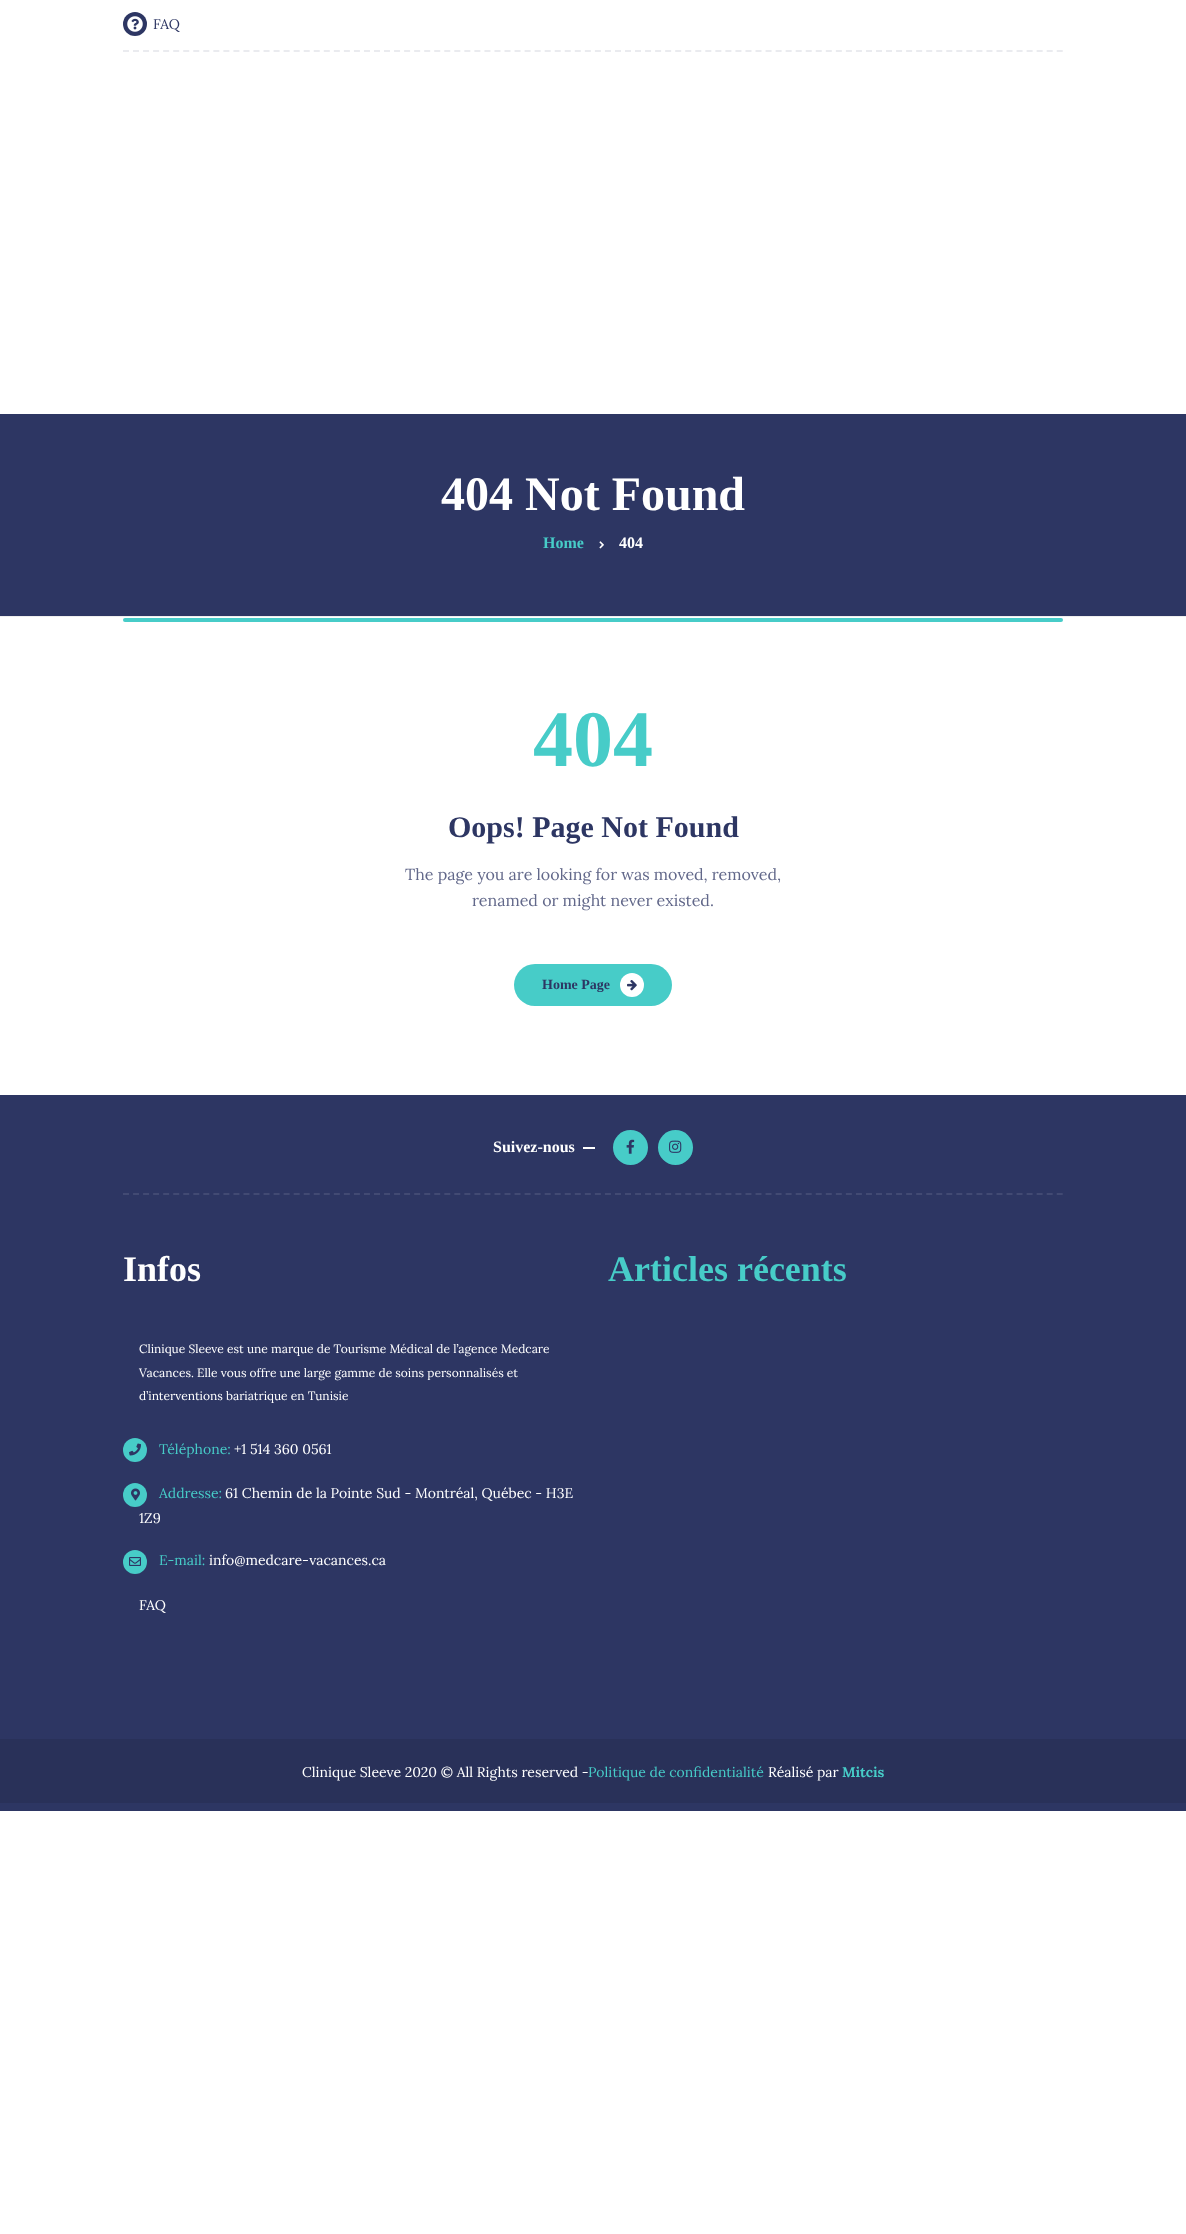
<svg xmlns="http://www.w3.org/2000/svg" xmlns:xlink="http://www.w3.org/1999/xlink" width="1186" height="2234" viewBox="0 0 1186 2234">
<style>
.cls-1{font:14px Lora;fill:#2d3663}
.cls-2{font:bold 48px Liberation Serif;fill:#ffffff}
.cls-3{font:bold 16px Liberation Serif;fill:#47ccc8}
.cls-4{font:bold 16px Liberation Serif;fill:#ffffff}
.cls-5{font:bold 80px Liberation Serif;fill:#47ccc8}
.cls-6{font:bold 30px Liberation Serif;fill:#2d3663}
.cls-7{font:16px Lora;fill:#62688a}
.cls-8{font:bold 14px Liberation Serif;fill:#2d3663}
.cls-9{font:bold 36px Liberation Serif;fill:#ffffff}
.cls-10{font:12px Lora;fill:#ffffff}
.cls-11{font:14px Lora;fill:#47ccc8}
.cls-12{font:14px Lora;fill:#ffffff}
.cls-13{font:bold 36px Liberation Serif;fill:#47ccc8}
.cls-14{font:bold 14px Lora;fill:#47ccc8}
</style>
<rect width="100%" height="100%" fill="#ffffff"/>
<circle fill="#2d3663" cx="135" cy="24" r="12"/>
<image xlink:href="image0.png" x="127" y="16" width="16" height="16"/>
<path fill="none" stroke="#eaebef" stroke-width="2" stroke-dasharray="6 4.04" d="M123 51H1063"/>
<rect fill="#2d3663" x="0" y="414" width="1186" height="202"/>
<rect fill="#eeeeee" x="0" y="616" width="1186" height="1"/>
<image xlink:href="image1.png" x="599" y="541" width="5" height="8"/>
<rect fill="#47ccc8" x="123" y="618" width="940" height="4" rx="2"/>
<rect fill="#47ccc8" x="514" y="964" width="158" height="42" rx="21"/>
<circle fill="#ffffff" cx="632" cy="985" r="12"/>
<image xlink:href="image2.png" x="627" y="980" width="10" height="11"/>
<rect fill="#2d3663" x="0" y="1095" width="1186" height="716"/>
<path fill="none" stroke="#424a73" stroke-width="2" stroke-dasharray="6 4.04" d="M123 1194H1063"/>
<rect fill="#ffffff" x="583" y="1147" width="12" height="2"/>
<circle fill="#47ccc8" cx="630.5" cy="1147.5" r="17.5"/>
<image xlink:href="image3.png" x="626" y="1139" width="9" height="15"/>
<circle fill="#47ccc8" cx="675.5" cy="1147.5" r="17.5"/>
<image xlink:href="image4.png" x="669" y="1140" width="13" height="13"/>
<circle fill="#47ccc8" cx="135" cy="1450" r="12"/>
<image xlink:href="image5.png" x="129" y="1443" width="12" height="13"/>
<circle fill="#47ccc8" cx="135" cy="1495" r="12"/>
<image xlink:href="image6.png" x="131" y="1488" width="9" height="13"/>
<circle fill="#47ccc8" cx="135" cy="1562" r="12"/>
<image xlink:href="image7.png" x="129" y="1557" width="12" height="9"/>
<rect fill="#293159" x="0" y="1739" width="1186" height="64"/>
<text class="cls-1" x="153" y="29">FAQ</text>
<text class="cls-2" x="441" y="510">404 Not Found</text>
<text class="cls-3" x="543" y="548">Home</text>
<text class="cls-4" x="619" y="548">404</text>
<text class="cls-5" x="533" y="766">404</text>
<text class="cls-6" x="448" y="837">Oops! Page Not Found</text>
<text class="cls-7" x="405" y="880">The page you are looking for was moved, removed,</text>
<text class="cls-7" x="472" y="906">renamed or might never existed.</text>
<text class="cls-8" x="542" y="989">Home Page</text>
<text class="cls-4" x="493" y="1152">Suivez-nous</text>
<text class="cls-9" x="123" y="1281">Infos</text>
<text class="cls-10" x="139" y="1353">Clinique Sleeve est une marque de Tourisme Médical de l’agence Medcare</text>
<text class="cls-10"><tspan x="139" y="1377">Vacances. Elle vous offre une large gamme de soins personnalisés et</tspan><tspan x="139" y="1400">d’interventions bariatrique en Tunisie</tspan></text>
<text class="cls-11" x="159" y="1454">Téléphone:</text>
<text class="cls-12" x="234" y="1454">+1 514 360 0561</text>
<text class="cls-11" x="159" y="1498">Addresse:</text>
<text class="cls-12" x="225" y="1498">61 Chemin de la Pointe Sud - Montréal, Québec - H3E</text>
<text class="cls-12" x="139" y="1523">1Z9</text>
<text class="cls-11" x="159" y="1565">E-mail:</text>
<text class="cls-12" x="209" y="1565">info@medcare-vacances.ca</text>
<text class="cls-12" x="139" y="1610">FAQ</text>
<text class="cls-13" x="608" y="1281">Articles récents</text>
<text class="cls-12" x="302" y="1777">Clinique Sleeve 2020 © All Rights reserved -</text>
<text class="cls-11" x="588" y="1777">Politique de confidentialité</text>
<text class="cls-12" x="768" y="1777">Réalisé par</text>
<text class="cls-14" x="842" y="1777">Mitcis</text>
</svg>
